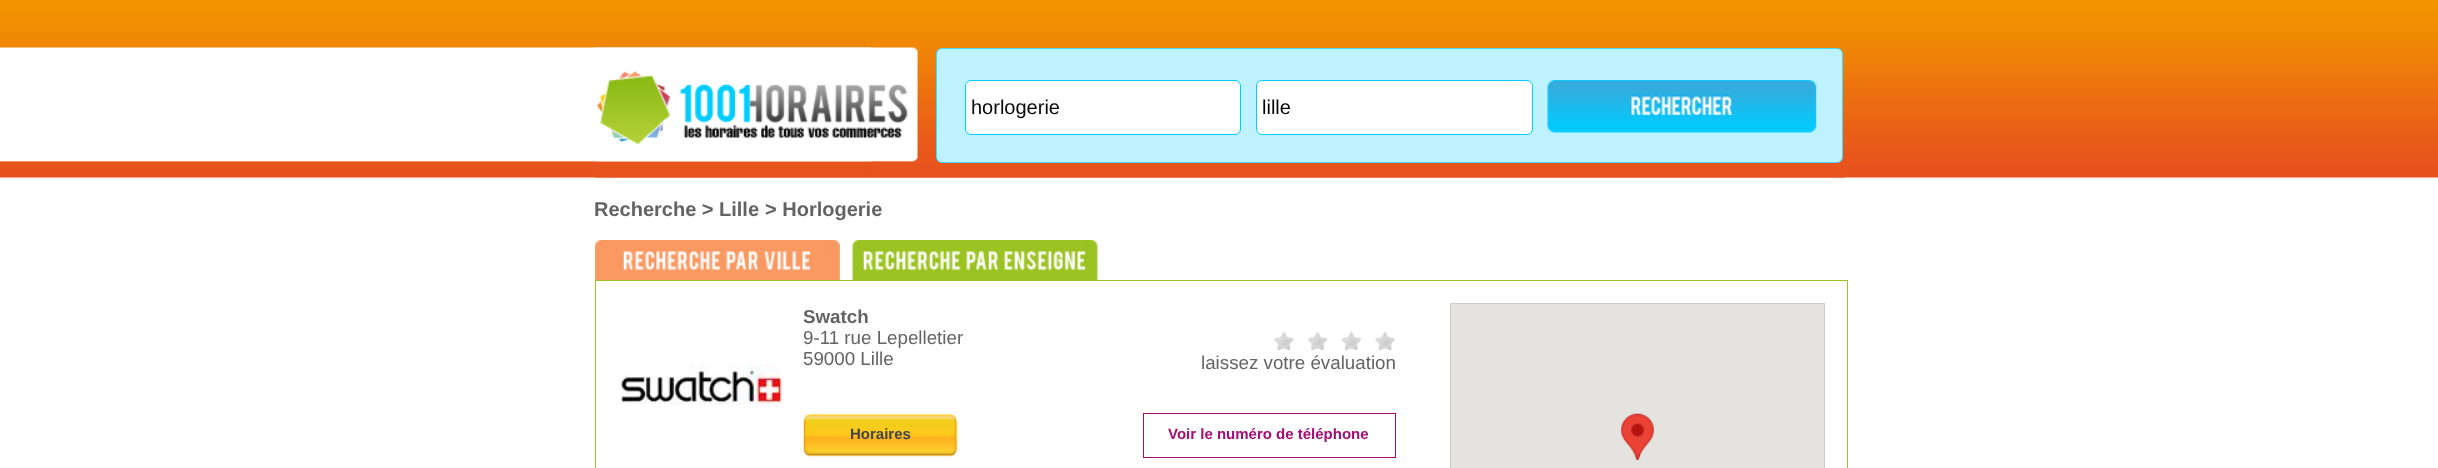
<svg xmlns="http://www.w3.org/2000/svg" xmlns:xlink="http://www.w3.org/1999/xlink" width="2438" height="468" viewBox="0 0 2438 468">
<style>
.cls-1{font:20px Liberation Sans;fill:#060606}
.cls-2{font:bold 20px Liberation Sans;fill:#636363}
.cls-3{font:bold 18.75px Liberation Sans;fill:#636363}
.cls-4{font:18.75px Liberation Sans;fill:#636363}
.cls-5{font:bold 15px Liberation Sans;fill:#444444}
.cls-6{font:bold 15px Liberation Sans;fill:#a40c77}
</style>
<rect width="100%" height="100%" fill="#ffffff"/>
<image xlink:href="image0.png" x="0" y="0" width="2438" height="178"/>
<image xlink:href="image1.png" x="595" y="44" width="1250" height="134"/>
<image xlink:href="image2.png" x="595" y="47" width="323" height="115"/>
<rect fill="#bff2ff" stroke="#45d8fd" x="936.5" y="48.5" width="906" height="114" rx="5.5"/>
<rect fill="#ffffff" stroke="#00ccff" x="965.5" y="80.5" width="275" height="54" rx="5.5"/>
<rect fill="#ffffff" stroke="#00ccff" x="1256.5" y="80.5" width="276" height="54" rx="5.5"/>
<image xlink:href="image3.png" x="1547" y="80" width="270" height="53"/>
<image xlink:href="image4.png" x="595" y="240" width="245" height="40"/>
<image xlink:href="image5.png" x="852" y="240" width="246" height="40"/>
<rect fill="none" stroke="#9bc322" x="595.5" y="280.5" width="1252" height="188"/>
<image xlink:href="image6.png" x="1274" y="331" width="20" height="19"/>
<image xlink:href="image7.png" x="1307" y="331" width="21" height="19"/>
<image xlink:href="image8.png" x="1341" y="331" width="21" height="19"/>
<image xlink:href="image9.png" x="1375" y="331" width="20" height="19"/>
<image xlink:href="image10.png" x="620" y="364" width="163" height="42"/>
<image xlink:href="image11.png" x="803" y="413" width="155" height="44"/>
<rect fill="none" stroke="#a40c77" x="1143.5" y="413.5" width="252" height="44"/>
<rect fill="none" stroke="#cccccc" x="1450.5" y="303.5" width="374" height="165"/>
<rect fill="#e5e3df" x="1451" y="304" width="373" height="164"/>
<image xlink:href="image12.png" x="1621" y="413" width="33" height="47"/>
<text class="cls-1" x="971" y="114">horlogerie</text>
<text class="cls-1" x="1262" y="114">lille</text>
<text class="cls-2" x="594" y="216">Recherche &gt;</text>
<text class="cls-2" x="719" y="216">Lille</text>
<text class="cls-2" x="765" y="216">&gt; Horlogerie</text>
<text class="cls-3" x="803" y="323">Swatch</text>
<text class="cls-4"><tspan x="803" y="344">9-11 rue Lepelletier</tspan><tspan x="803" y="365">59000 Lille</tspan></text>
<text class="cls-4" x="1201" y="369">laissez votre évaluation</text>
<text class="cls-5" x="850" y="439">Horaires</text>
<text class="cls-6" x="1168" y="439">Voir le numéro de téléphone</text>
</svg>
